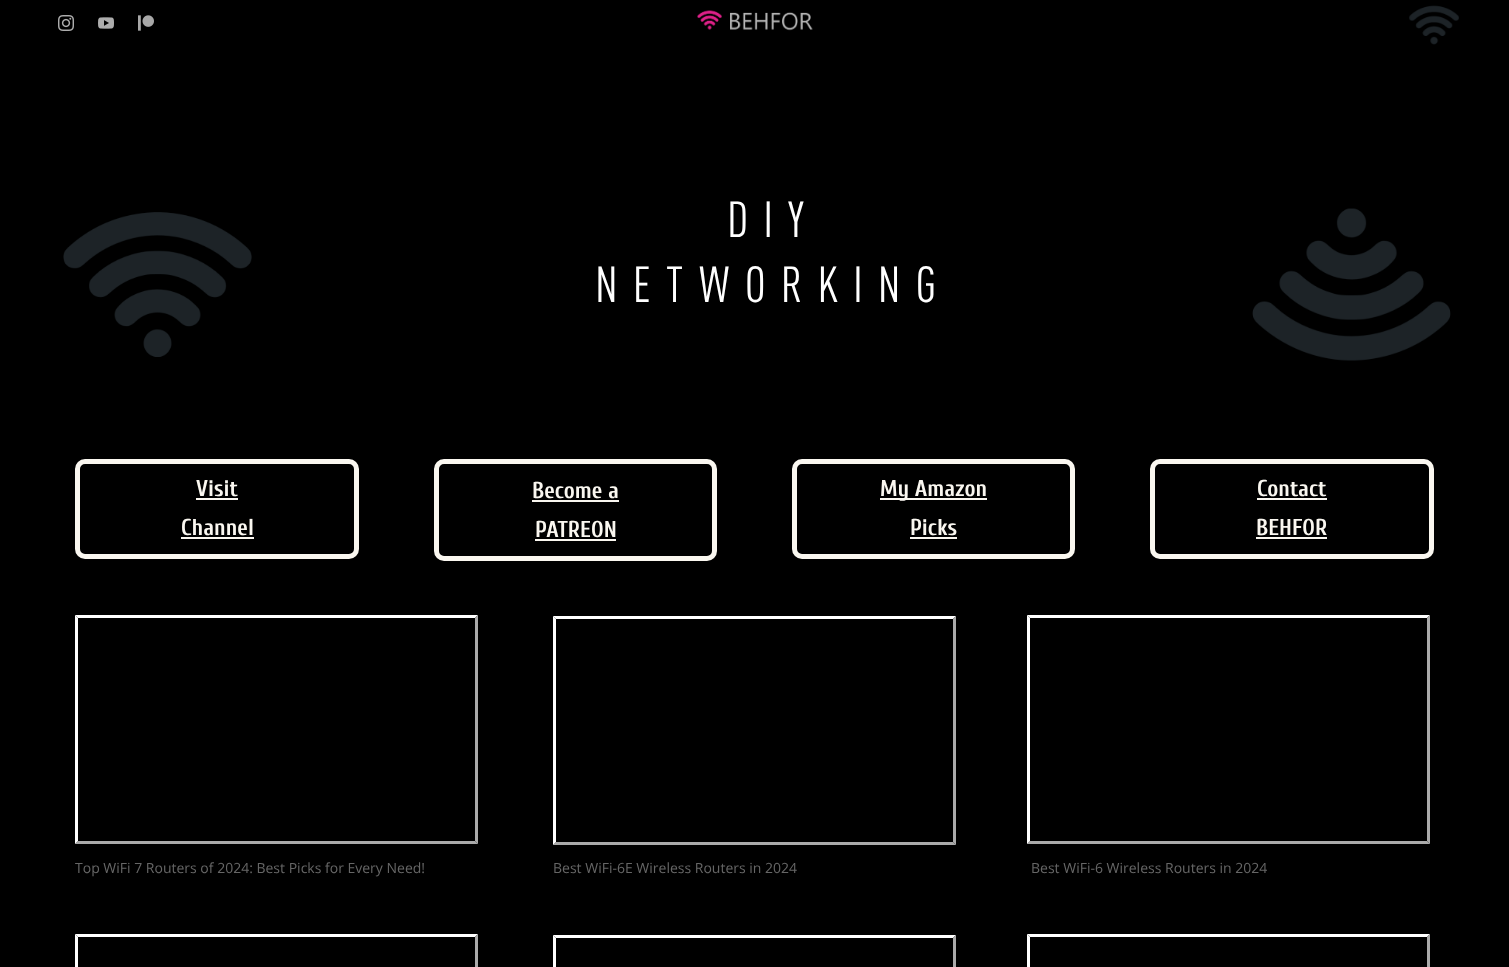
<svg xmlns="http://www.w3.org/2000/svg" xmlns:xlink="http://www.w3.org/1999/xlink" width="1509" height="967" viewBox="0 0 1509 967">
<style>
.cls-1{font:50px DIN;letter-spacing:15px;fill:#ffffff}
.cls-2{font:bold 23px Cuprum;fill:#faf7f0}
.cls-3{font:14px Open Sans;fill:#666666}
</style>
<rect width="100%" height="100%" fill="#000000"/>
<image xlink:href="image0.png" x="58" y="15" width="16" height="16"/>
<image xlink:href="image1.png" x="98" y="17" width="16" height="12"/>
<image xlink:href="image2.png" x="138" y="15" width="16" height="16"/>
<image xlink:href="image3.png" x="697" y="10" width="116" height="21"/>
<image xlink:href="image4.png" x="1409" y="5" width="50" height="40"/>
<image xlink:href="image5.png" x="63" y="212" width="189" height="145"/>
<image xlink:href="image6.png" x="1252" y="208" width="199" height="153"/>
<rect fill="none" stroke="#faf7f0" stroke-width="5" x="77.5" y="461.5" width="279" height="95" rx="7.5"/>
<rect fill="#faf7f0" x="196" y="498" width="42" height="2"/>
<rect fill="#faf7f0" x="181" y="537" width="73" height="2"/>
<rect fill="none" stroke="#faf7f0" stroke-width="5" x="436.5" y="461.5" width="278" height="97" rx="7.5"/>
<rect fill="#faf7f0" x="532" y="500" width="87" height="2"/>
<rect fill="#faf7f0" x="535" y="539" width="81" height="2"/>
<rect fill="none" stroke="#faf7f0" stroke-width="5" x="794.5" y="461.5" width="278" height="95" rx="7.5"/>
<rect fill="#faf7f0" x="880" y="498" width="107" height="2"/>
<rect fill="#faf7f0" x="910" y="537" width="47" height="2"/>
<rect fill="none" stroke="#faf7f0" stroke-width="5" x="1152.5" y="461.5" width="279" height="95" rx="7.5"/>
<rect fill="#faf7f0" x="1257" y="498" width="70" height="2"/>
<rect fill="#faf7f0" x="1256" y="537" width="71" height="2"/>
<path fill="#ffffff" d="M75 615H478L475 618H78Z"/>
<path fill="#aaaaaa" d="M478 615V844L475 841V618Z"/>
<path fill="#aaaaaa" d="M478 844H75L78 841H475Z"/>
<path fill="#ffffff" d="M75 844V615L78 618V841Z"/>
<path fill="#ffffff" d="M553 616H956L953 619H556Z"/>
<path fill="#aaaaaa" d="M956 616V845L953 842V619Z"/>
<path fill="#aaaaaa" d="M956 845H553L556 842H953Z"/>
<path fill="#ffffff" d="M553 845V616L556 619V842Z"/>
<path fill="#ffffff" d="M1027 615H1430L1427 618H1030Z"/>
<path fill="#aaaaaa" d="M1430 615V844L1427 841V618Z"/>
<path fill="#aaaaaa" d="M1430 844H1027L1030 841H1427Z"/>
<path fill="#ffffff" d="M1027 844V615L1030 618V841Z"/>
<path fill="#ffffff" d="M75 934H478L475 937H78Z"/>
<path fill="#aaaaaa" d="M478 934V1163L475 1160V937Z"/>
<path fill="#ffffff" d="M75 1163V934L78 937V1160Z"/>
<path fill="#ffffff" d="M553 935H956L953 938H556Z"/>
<path fill="#aaaaaa" d="M956 935V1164L953 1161V938Z"/>
<path fill="#ffffff" d="M553 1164V935L556 938V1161Z"/>
<path fill="#ffffff" d="M1027 934H1430L1427 937H1030Z"/>
<path fill="#aaaaaa" d="M1430 934V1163L1427 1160V937Z"/>
<path fill="#ffffff" d="M1027 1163V934L1030 937V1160Z"/>
<text class="cls-1" x="727" y="237">DIY</text>
<text class="cls-1" x="595" y="302">NETWORKING</text>
<text class="cls-2" x="196" y="496">Visit</text>
<text class="cls-2" x="181" y="535">Channel</text>
<text class="cls-2" x="532" y="498">Become a</text>
<text class="cls-2" x="535" y="537">PATREON</text>
<text class="cls-2" x="880" y="496">My Amazon</text>
<text class="cls-2" x="910" y="535">Picks</text>
<text class="cls-2" x="1257" y="496">Contact</text>
<text class="cls-2" x="1256" y="535">BEHFOR</text>
<text class="cls-3" x="75" y="873">Top WiFi 7 Routers of 2024: Best Picks for Every Need!</text>
<text class="cls-3" x="553" y="873">Best WiFi-6E Wireless Routers in 2024</text>
<text class="cls-3" x="1031" y="873">Best WiFi-6 Wireless Routers in 2024</text>
</svg>
